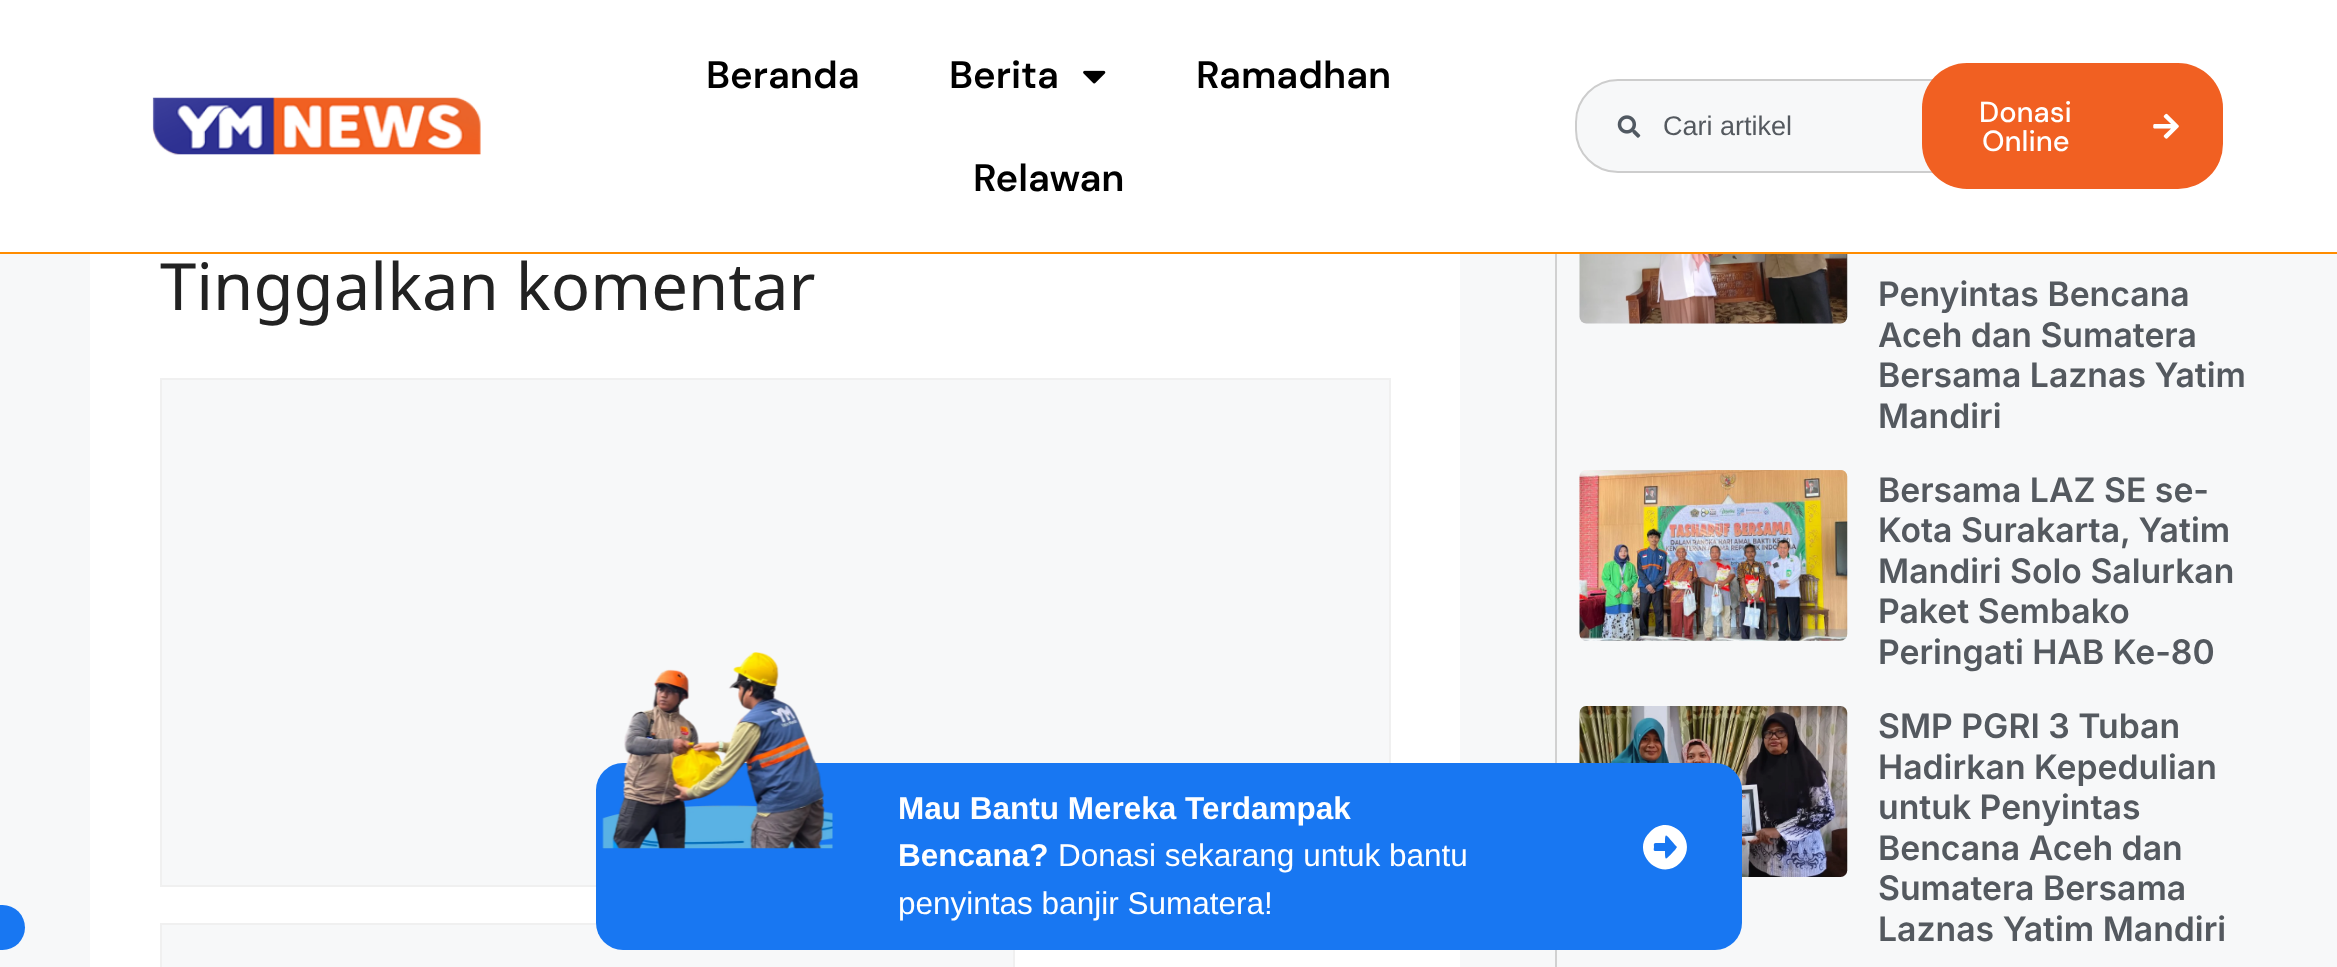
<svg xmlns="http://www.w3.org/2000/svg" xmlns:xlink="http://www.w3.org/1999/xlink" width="2337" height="967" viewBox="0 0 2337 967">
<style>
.cls-1{font:600 38.25px DM Sans;fill:#000000}
.cls-2{font:27px Liberation Sans;fill:#54595f}
.cls-3{font:500 29px DM Sans;fill:#ffffff}
.cls-4{font:65.25px Noto Sans;fill:#222222}
.cls-5{font:600 33.75px Inter;fill:#54595f}
.cls-6{font:bold 31.5px Liberation Sans;fill:#ffffff}
.cls-7{font:31.5px Liberation Sans;fill:#ffffff}
</style>
<rect width="100%" height="100%" fill="#f7f8f9"/>
<rect fill="#ffffff" x="0" y="0" width="2337" height="252"/>
<rect fill="#ff8c00" x="0" y="252" width="2337" height="2"/>
<image xlink:href="image0.png" x="152" y="97" width="329" height="58"/>
<image xlink:href="image1.png" x="1083" y="70" width="23" height="14"/>
<rect fill="#f7f8f9" stroke="#cdcdcd" stroke-width="2" x="1576" y="80" width="477" height="92" rx="42"/>
<image xlink:href="image2.png" x="1617" y="115" width="24" height="23"/>
<rect fill="#f16022" x="1922" y="63" width="301" height="126" rx="45"/>
<image xlink:href="image3.png" x="2153" y="113" width="26" height="26"/>
<rect fill="#ffffff" x="90" y="254" width="1370" height="713"/>
<rect fill="#f7f8f9" stroke="#f0f0f0" stroke-width="2" x="161" y="379" width="1229" height="507"/>
<rect fill="#f7f8f9" stroke="#f0f0f0" stroke-width="2" x="161" y="924" width="853" height="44"/>
<rect fill="#d1d1d1" x="1555" y="254" width="2" height="713"/>
<image xlink:href="image4.png" x="1579" y="254" width="269" height="70"/>
<image xlink:href="image5.png" x="1579" y="470" width="269" height="171"/>
<image xlink:href="image6.png" x="1579" y="706" width="269" height="171"/>
<rect fill="#1877f2" x="596" y="763" width="1146" height="187" rx="27"/>
<image xlink:href="image7.png" x="602" y="652" width="231" height="197"/>
<path fill="#ffffff" d="M1650 832C1670 811 1701 842 1680 863C1660 883 1629 852 1650 832ZM1655 851H1665C1665 863 1666 859 1675 850L1677 847L1675 845C1666 835 1665 831 1665 843H1657C1653 843 1654 844 1654 847C1654 848 1653 851 1655 851Z"/>
<rect fill="#1877f2" x="-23" y="905" width="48" height="45" rx="22.5"/>
<text class="cls-1" x="706" y="88">Beranda</text>
<text class="cls-1" x="949" y="88">Berita</text>
<text class="cls-1" x="1196" y="88">Ramadhan</text>
<text class="cls-1" x="973" y="191">Relawan</text>
<text class="cls-2" x="1663" y="135">Cari artikel</text>
<text class="cls-3" x="1979" y="122">Donasi</text>
<text class="cls-3" x="1982" y="151">Online</text>
<text class="cls-4" x="160" y="310">Tinggalkan komentar</text>
<text class="cls-5"><tspan x="1878" y="306">Penyintas Bencana</tspan><tspan x="1878" y="347">Aceh dan Sumatera</tspan><tspan x="1878" y="387">Bersama Laznas Yatim</tspan><tspan x="1878" y="428">Mandiri</tspan></text>
<text class="cls-5"><tspan x="1878" y="502">Bersama LAZ SE se-</tspan><tspan x="1878" y="542">Kota Surakarta, Yatim</tspan><tspan x="1878" y="583">Mandiri Solo Salurkan</tspan><tspan x="1878" y="623">Paket Sembako</tspan><tspan x="1878" y="664">Peringati HAB Ke-80</tspan></text>
<text class="cls-5"><tspan x="1878" y="738">SMP PGRI 3 Tuban</tspan><tspan x="1878" y="779">Hadirkan Kepedulian</tspan><tspan x="1878" y="819">untuk Penyintas</tspan><tspan x="1878" y="860">Bencana Aceh dan</tspan><tspan x="1878" y="900">Sumatera Bersama</tspan><tspan x="1878" y="941">Laznas Yatim Mandiri</tspan></text>
<text class="cls-6"><tspan x="898" y="819">Mau Bantu Mereka Terdampak</tspan><tspan x="898" y="866">Bencana?</tspan></text>
<text class="cls-7" x="1058" y="866">Donasi sekarang untuk bantu</text>
<text class="cls-7" x="898" y="914">penyintas banjir Sumatera!</text>
</svg>
